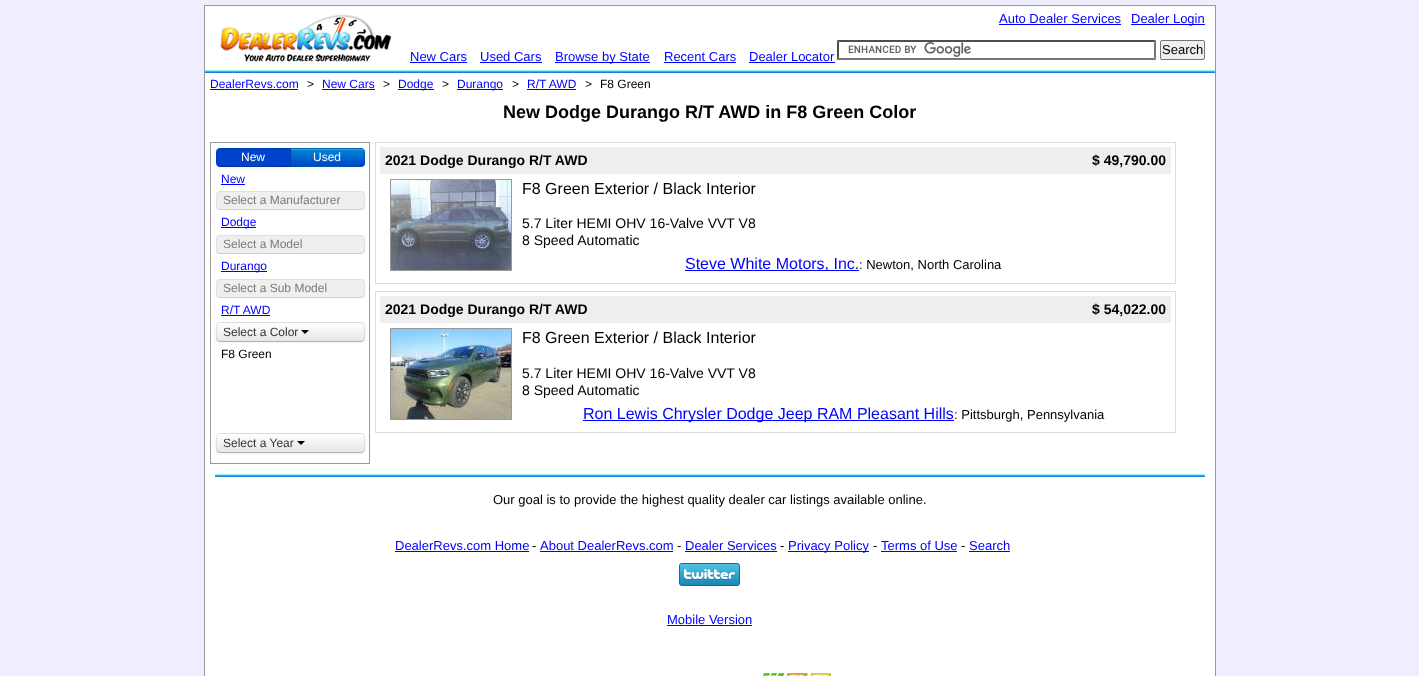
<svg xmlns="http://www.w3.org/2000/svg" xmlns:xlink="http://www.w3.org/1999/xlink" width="1419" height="676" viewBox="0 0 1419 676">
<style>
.cls-1{font:13px Liberation Sans;fill:#0000ff}
.cls-2{font:13px Liberation Sans;fill:#000000}
.cls-3{font:12px Liberation Sans;fill:#0000ff}
.cls-4{font:12px Liberation Sans;fill:#000000}
.cls-5{font:bold 18px Liberation Sans;fill:#000000}
.cls-6{font:12px Liberation Sans;fill:#ffffff}
.cls-7{font:12px Liberation Sans;fill:#7a7a7a}
.cls-8{font:12px Liberation Sans;fill:#333333}
.cls-9{font:bold 14px Liberation Sans;fill:#000000}
.cls-10{font:16px Liberation Sans;fill:#000000}
.cls-11{font:14px Liberation Sans;fill:#000000}
.cls-12{font:16px Liberation Sans;fill:#0000ff}
</style>
<defs>
<clipPath id="clip1"><path d="M290 148H361C363 148 365 150 365 152V163C365 165 363 167 361 167H290Z"/></clipPath>
<linearGradient id="g1" gradientUnits="userSpaceOnUse" x1="328" y1="149" x2="328" y2="166"><stop offset="0" stop-color="#0088cc"/><stop offset="1" stop-color="#0044cc"/></linearGradient>
<clipPath id="clip2"><rect x="216" y="322" width="149" height="20" rx="4"/></clipPath>
<linearGradient id="g2" gradientUnits="userSpaceOnUse" x1="291" y1="323" x2="291" y2="341"><stop offset="0" stop-color="#ffffff"/><stop offset="1" stop-color="#e6e6e6"/></linearGradient>
<clipPath id="clip3"><rect x="216" y="433" width="149" height="20" rx="4"/></clipPath>
<linearGradient id="g3" gradientUnits="userSpaceOnUse" x1="291" y1="434" x2="291" y2="452"><stop offset="0" stop-color="#ffffff"/><stop offset="1" stop-color="#e6e6e6"/></linearGradient>
</defs>
<rect width="100%" height="100%" fill="#eeeeff"/>
<rect fill="#ffffff" stroke="#999999" x="204.5" y="5.5" width="1011" height="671"/>
<image xlink:href="image0.png" x="220" y="14" width="172" height="48"/>
<rect fill="#0000ff" x="410" y="62" width="57" height="1"/>
<rect fill="#0000ff" x="480" y="62" width="62" height="1"/>
<rect fill="#0000ff" x="555" y="62" width="95" height="1"/>
<rect fill="#0000ff" x="664" y="62" width="72" height="1"/>
<rect fill="#0000ff" x="749" y="62" width="86" height="1"/>
<rect fill="#0000ff" x="999" y="24" width="122" height="1"/>
<rect fill="#0000ff" x="1131" y="24" width="74" height="1"/>
<image xlink:href="image1.png" x="848" y="42" width="123" height="15"/>
<path fill="#4f4f4f" d="M837 40H1156L1154 42H839Z"/>
<path fill="#767676" d="M1156 40V60L1154 58V42Z"/>
<path fill="#767676" d="M1156 60H837L839 58H1154Z"/>
<path fill="#4f4f4f" d="M837 60V40L839 42V58Z"/>
<rect fill="#efefef" stroke="#767676" x="1160.5" y="40.5" width="44" height="19" rx="1.5"/>
<rect fill="#35b2ec" x="205" y="71" width="1010" height="1"/>
<rect fill="#9bf0f9" x="205" y="70" width="1010" height="1"/>
<rect fill="#1d7ed7" x="205" y="72" width="1010" height="1"/>
<rect fill="#0000ff" x="210" y="89" width="88" height="1"/>
<rect fill="#0000ff" x="322" y="89" width="53" height="1"/>
<rect fill="#0000ff" x="398" y="89" width="36" height="1"/>
<rect fill="#0000ff" x="457" y="89" width="46" height="1"/>
<rect fill="#0000ff" x="527" y="89" width="49" height="1"/>
<rect fill="none" stroke="#999999" x="210.5" y="142.5" width="159" height="321"/>
<rect fill="#000000" fill-opacity="0.05" filter="blur(1px)" x="290" y="149" width="75" height="19" rx="4"/>
<path fill="#006dcc" d="M290 148H361C363 148 365 150 365 152V163C365 165 363 167 361 167H290Z"/>
<g clip-path="url(#clip1)">
<rect fill="url(#g1)" x="291" y="149" width="74" height="17"/>
</g>
<path fill="#ffffff" fill-opacity="0.2" d="M291 150H361C363 150 364 151 364 153V152C364 150 363 149 361 149H291Z"/>
<path fill="#000000" fill-opacity="0.1" d="M290 148L291 149C299 149 362 148 363 150L364 149L361 148Z"/>
<path fill="#000000" fill-opacity="0.1" d="M365 163V152C365 151 364.5 150 364 149L363 150C365 151.5 364 155.5 364 157.5C364 159.5 365 163.5 363 165L364 166C364.5 165 365 164 365 163Z"/>
<path fill="#000000" fill-opacity="0.25" d="M361 167L364 166L363 165C362 167 299 166 291 166L290 167Z"/>
<rect fill="#000000" fill-opacity="0.05" filter="blur(1px)" x="216" y="149" width="75" height="19" rx="4"/>
<path fill="#0044cc" d="M220 148H291V167H220C218 167 216 165 216 163V152C216 150 218 148 220 148Z"/>
<path fill="#000000" fill-opacity="0.1" d="M220 148L217 149L218 150C219 148 282 149 290 149L291 148Z"/>
<path fill="#000000" fill-opacity="0.1" d="M291 148L290 149V166L291 167Z"/>
<path fill="#000000" fill-opacity="0.25" d="M291 167L290 166C282 166 219 167 218 165L217 166L220 167Z"/>
<path fill="#000000" fill-opacity="0.1" d="M216 152V163C216 164 216.5 165 217 166L218 165C216 163.5 217 159.5 217 157.5C217 155.5 216 151.5 218 150L217 149C216.5 150 216 151 216 152Z"/>
<rect fill="#0000ff" x="221" y="184" width="24" height="1"/>
<rect fill="#efefef" x="216" y="191" width="149" height="19" rx="4"/>
<path fill="none" stroke="#cecece" d="M363.5 208.5C363 209 362 209.5 361 209.5H220C219 209.5 218 209 217.5 208.5"/>
<path fill="none" stroke="#595959" stroke-opacity="0.1" d="M217.5 208.5C215.5 206.5 216.5 199.5 216.5 197C216.5 194.5 217 191.5 220 191.5H361C364 191.5 364.5 194.5 364.5 197C364.5 199.5 365.5 206.5 363.5 208.5"/>
<rect fill="#0000ff" x="221" y="227" width="35" height="1"/>
<rect fill="#efefef" x="216" y="235" width="149" height="19" rx="4"/>
<path fill="none" stroke="#cecece" d="M363.5 252.5C363 253 362 253.5 361 253.5H220C219 253.5 218 253 217.5 252.5"/>
<path fill="none" stroke="#595959" stroke-opacity="0.1" d="M217.5 252.5C215.5 250.5 216.5 243.5 216.5 241C216.5 238.5 217 235.5 220 235.5H361C364 235.5 364.5 238.5 364.5 241C364.5 243.5 365.5 250.5 363.5 252.5"/>
<rect fill="#0000ff" x="221" y="271" width="46" height="1"/>
<rect fill="#efefef" x="216" y="279" width="149" height="19" rx="4"/>
<path fill="none" stroke="#cecece" d="M363.5 296.5C363 297 362 297.5 361 297.5H220C219 297.5 218 297 217.5 296.5"/>
<path fill="none" stroke="#595959" stroke-opacity="0.1" d="M217.5 296.5C215.5 294.5 216.5 287.5 216.5 285C216.5 282.5 217 279.5 220 279.5H361C364 279.5 364.5 282.5 364.5 285C364.5 287.5 365.5 294.5 363.5 296.5"/>
<rect fill="#0000ff" x="221" y="315" width="49" height="1"/>
<rect fill="#000000" fill-opacity="0.05" filter="blur(1px)" x="216" y="323" width="149" height="20" rx="4"/>
<rect fill="#f5f5f5" x="216" y="322" width="149" height="20" rx="4"/>
<g clip-path="url(#clip2)">
<rect fill="url(#g2)" x="216" y="323" width="149" height="18"/>
</g>
<path fill="none" stroke="#b3b3b3" d="M363.5 340.5C363 341 362 341.5 361 341.5H220C219 341.5 218 341 217.5 340.5"/>
<path fill="none" stroke="#000000" stroke-opacity="0.1" d="M217.5 340.5C215 338 216.5 331 216.5 328C216.5 325.5 217 322.5 220 322.5H361C364 322.5 364.5 325.5 364.5 328C364.5 331 366 338 363.5 340.5"/>
<path fill="#000000" d="M301 330H309L305 334Z"/>
<rect fill="#000000" fill-opacity="0.05" filter="blur(1px)" x="216" y="434" width="149" height="20" rx="4"/>
<rect fill="#f5f5f5" x="216" y="433" width="149" height="20" rx="4"/>
<g clip-path="url(#clip3)">
<rect fill="url(#g3)" x="216" y="434" width="149" height="18"/>
</g>
<path fill="none" stroke="#b3b3b3" d="M363.5 451.5C363 452 362 452.5 361 452.5H220C219 452.5 218 452 217.5 451.5"/>
<path fill="none" stroke="#000000" stroke-opacity="0.1" d="M217.5 451.5C215 449 216.5 442 216.5 439C216.5 436.5 217 433.5 220 433.5H361C364 433.5 364.5 436.5 364.5 439C364.5 442 366 449 363.5 451.5"/>
<path fill="#000000" d="M297 441H305L301 445Z"/>
<rect fill="none" stroke="#dddddd" x="375.5" y="142.5" width="800" height="141"/>
<rect fill="#eeeeee" x="380" y="147" width="791" height="27"/>
<rect fill="none" stroke="#999999" x="390.5" y="179.5" width="121" height="91"/>
<image xlink:href="image2.png" x="391" y="180" width="120" height="90"/>
<rect fill="#0000ff" x="685" y="270" width="174" height="1"/>
<rect fill="none" stroke="#dddddd" x="375.5" y="291.5" width="800" height="141"/>
<rect fill="#eeeeee" x="380" y="296" width="791" height="27"/>
<rect fill="none" stroke="#999999" x="390.5" y="328.5" width="121" height="91"/>
<image xlink:href="image3.png" x="391" y="329" width="120" height="90"/>
<rect fill="#0000ff" x="583" y="420" width="371" height="1"/>
<rect fill="#35b2ec" x="215" y="475" width="990" height="1"/>
<rect fill="#9bf0f9" x="215" y="474" width="990" height="1"/>
<rect fill="#1d7ed7" x="215" y="476" width="990" height="1"/>
<rect fill="#0000ff" x="395" y="551" width="134" height="1"/>
<rect fill="#0000ff" x="540" y="551" width="133" height="1"/>
<rect fill="#0000ff" x="685" y="551" width="92" height="1"/>
<rect fill="#0000ff" x="788" y="551" width="81" height="1"/>
<rect fill="#0000ff" x="881" y="551" width="76" height="1"/>
<rect fill="#0000ff" x="969" y="551" width="41" height="1"/>
<image xlink:href="image4.png" x="679" y="563" width="61" height="23"/>
<rect fill="#0000ff" x="667" y="625" width="85" height="1"/>
<image xlink:href="image5.png" x="761" y="673" width="70" height="3"/>
<text class="cls-1" x="410" y="61">New Cars</text>
<text class="cls-1" x="480" y="61">Used Cars</text>
<text class="cls-1" x="555" y="61">Browse by State</text>
<text class="cls-1" x="664" y="61">Recent Cars</text>
<text class="cls-1" x="749" y="61">Dealer Locator</text>
<text class="cls-1" x="999" y="23">Auto Dealer Services</text>
<text class="cls-1" x="1131" y="23">Dealer Login</text>
<text class="cls-2" x="1162" y="54">Search</text>
<text class="cls-3" x="210" y="88">DealerRevs.com</text>
<text class="cls-4" x="307" y="88">&gt;</text>
<text class="cls-3" x="322" y="88">New Cars</text>
<text class="cls-4" x="383" y="88">&gt;</text>
<text class="cls-3" x="398" y="88">Dodge</text>
<text class="cls-4" x="442" y="88">&gt;</text>
<text class="cls-3" x="457" y="88">Durango</text>
<text class="cls-4" x="512" y="88">&gt;</text>
<text class="cls-3" x="527" y="88">R/T AWD</text>
<text class="cls-4" x="585" y="88">&gt;</text>
<text class="cls-4" x="600" y="88">F8 Green</text>
<text class="cls-5" x="503" y="118">New Dodge Durango R/T AWD in F8 Green Color</text>
<text class="cls-6" x="241" y="161">New</text>
<text class="cls-6" x="313" y="161">Used</text>
<text class="cls-3" x="221" y="183">New</text>
<text class="cls-7" x="223" y="204">Select a Manufacturer</text>
<text class="cls-3" x="221" y="226">Dodge</text>
<text class="cls-7" x="223" y="248">Select a Model</text>
<text class="cls-3" x="221" y="270">Durango</text>
<text class="cls-7" x="223" y="292">Select a Sub Model</text>
<text class="cls-3" x="221" y="314">R/T AWD</text>
<text class="cls-8" x="223" y="336">Select a Color</text>
<text class="cls-4" x="221" y="358">F8 Green</text>
<text class="cls-8" x="223" y="447">Select a Year</text>
<text class="cls-9" x="385" y="165">2021 Dodge Durango R/T AWD</text>
<text class="cls-9" x="1092" y="165">$ 49,790.00</text>
<text class="cls-10" x="522" y="194">F8 Green Exterior / Black Interior</text>
<text class="cls-11"><tspan x="522" y="228">5.7 Liter HEMI OHV 16-Valve VVT V8</tspan><tspan x="522" y="245">8 Speed Automatic</tspan></text>
<text class="cls-12" x="685" y="269">Steve White Motors, Inc.</text>
<text class="cls-2" x="859" y="269">: Newton, North Carolina</text>
<text class="cls-9" x="385" y="314">2021 Dodge Durango R/T AWD</text>
<text class="cls-9" x="1092" y="314">$ 54,022.00</text>
<text class="cls-10" x="522" y="343">F8 Green Exterior / Black Interior</text>
<text class="cls-11"><tspan x="522" y="378">5.7 Liter HEMI OHV 16-Valve VVT V8</tspan><tspan x="522" y="395">8 Speed Automatic</tspan></text>
<text class="cls-12" x="583" y="419">Ron Lewis Chrysler Dodge Jeep RAM Pleasant Hills</text>
<text class="cls-2" x="954" y="419">: Pittsburgh, Pennsylvania</text>
<text class="cls-2" x="493" y="504">Our goal is to provide the highest quality dealer car listings available online.</text>
<text class="cls-1" x="395" y="550">DealerRevs.com Home</text>
<text class="cls-2" x="532" y="550">-</text>
<text class="cls-1" x="540" y="550">About DealerRevs.com</text>
<text class="cls-2" x="677" y="550">-</text>
<text class="cls-1" x="685" y="550">Dealer Services</text>
<text class="cls-2" x="780" y="550">-</text>
<text class="cls-1" x="788" y="550">Privacy Policy</text>
<text class="cls-2" x="873" y="550">-</text>
<text class="cls-1" x="881" y="550">Terms of Use</text>
<text class="cls-2" x="961" y="550">-</text>
<text class="cls-1" x="969" y="550">Search</text>
<text class="cls-1" x="667" y="624">Mobile Version</text>
</svg>
